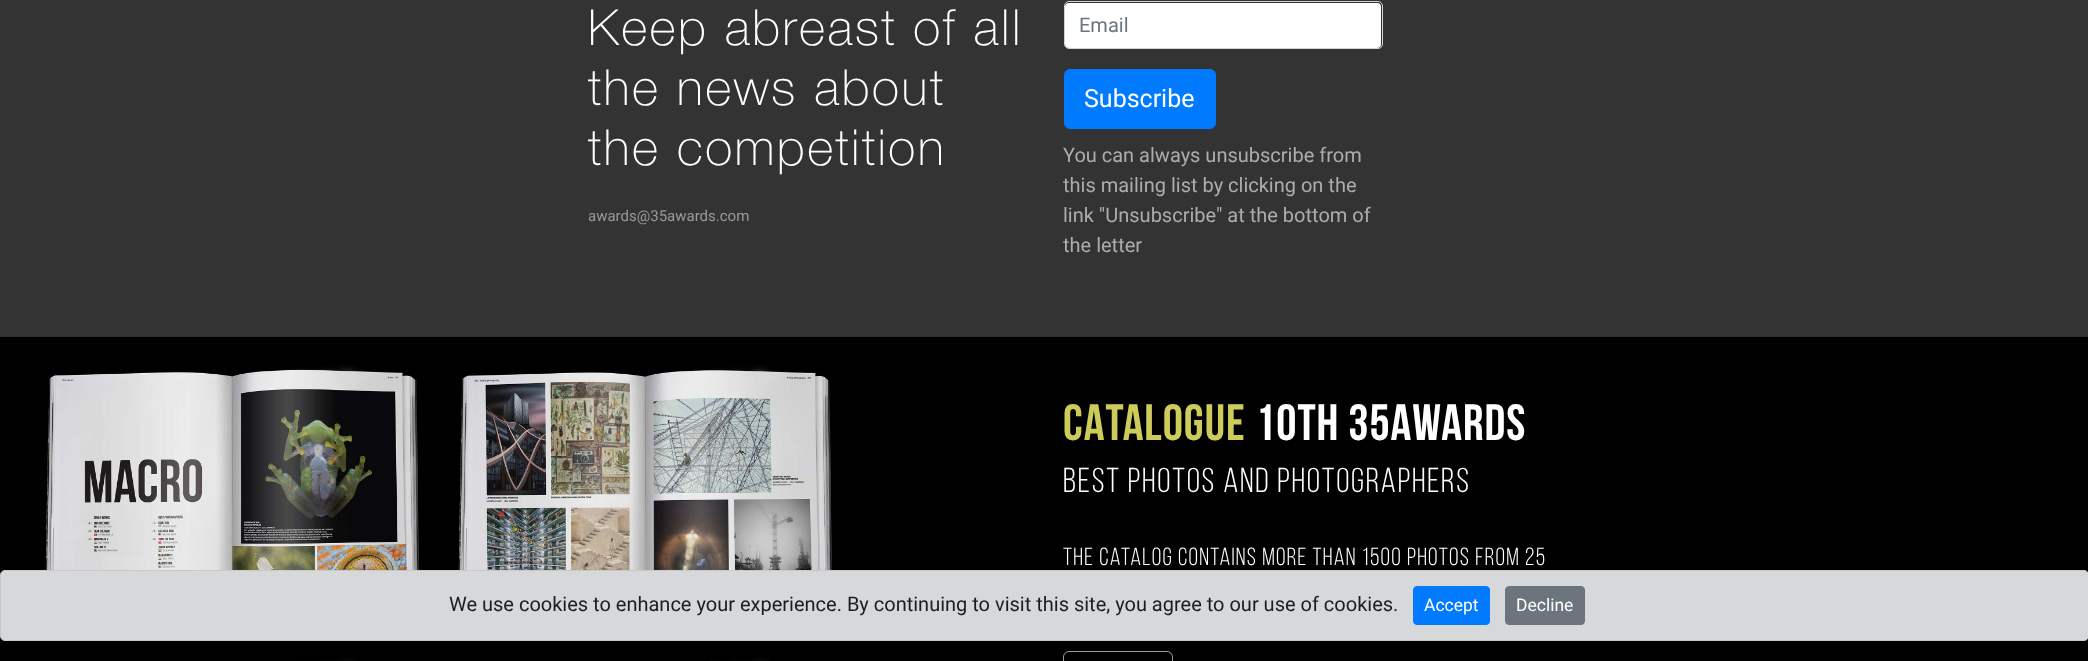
<svg xmlns="http://www.w3.org/2000/svg" xmlns:xlink="http://www.w3.org/1999/xlink" width="2088" height="661" viewBox="0 0 2088 661">
<style>
.cls-1{font:100 50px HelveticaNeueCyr;letter-spacing:2.5px;fill:#ffffff}
.cls-2{font:15px Roboto;fill:#999999}
.cls-3{font:20px Roboto;fill:#6c757d}
.cls-4{font:25px Roboto;fill:#ffffff}
.cls-5{font:20px Roboto;fill:#adadad}
.cls-6{font:bold 51px Bebas Neue;letter-spacing:1px;fill:#cdcc5b}
.cls-7{font:bold 51px Bebas Neue;letter-spacing:1px;fill:#ffffff}
.cls-8{font:34.5px Bebas Neue;letter-spacing:1.75px;fill:#ffffff}
.cls-9{font:24.75px Bebas Neue;letter-spacing:1.25px;fill:#ffffff}
.cls-10{font:20px Roboto;fill:#1b1e21}
.cls-11{font:17.5px Roboto;fill:#ffffff}
</style>
<rect width="100%" height="100%" fill="#333333"/>
<rect fill="#ffffff" x="1065" y="3" width="316" height="45" rx="4"/>
<rect fill="none" stroke="#ced4da" x="1064.5" y="1.5" width="318" height="47" rx="4.5"/>
<rect fill="#007bff" stroke="#007bff" x="1064.5" y="69.5" width="151" height="59" rx="5.5"/>
<rect fill="#000000" x="0" y="337" width="2088" height="324"/>
<rect fill="#2e2e2e" x="0" y="336" width="2088" height="1"/>
<image xlink:href="image0.png" x="44" y="365" width="789" height="296"/>
<rect fill="none" stroke="#9e9e9e" x="1063.5" y="651.5" width="109" height="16" rx="5.5"/>
<rect fill="#d6d8d9" stroke="#c6c8ca" x="0.5" y="570.5" width="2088" height="70" rx="4.5"/>
<rect fill="#007bff" stroke="#007bff" x="1413.5" y="586.5" width="76" height="38" rx="3.5"/>
<rect fill="#6c757d" stroke="#6c757d" x="1505.5" y="586.5" width="79" height="38" rx="3.5"/>
<text class="cls-1"><tspan x="588" y="45">Keep abreast of all</tspan><tspan x="588" y="105">the news about</tspan><tspan x="588" y="165">the competition</tspan></text>
<text class="cls-2" x="588" y="221">awards@35awards.com</text>
<text class="cls-3" x="1079" y="32">Email</text>
<text class="cls-4" x="1084" y="107">Subscribe</text>
<text class="cls-5"><tspan x="1063" y="162">You can always unsubscribe from</tspan><tspan x="1063" y="192">this mailing list by clicking on the</tspan><tspan x="1063" y="222">link "Unsubscribe" at the bottom of</tspan><tspan x="1063" y="252">the letter</tspan></text>
<text class="cls-6" x="1063" y="440">CATALOGUE</text>
<text class="cls-7" x="1255" y="440">10TH 35AWARDS</text>
<text class="cls-8" x="1063" y="492">BEST PHOTOS AND PHOTOGRAPHERS</text>
<text class="cls-9" x="1063" y="565">The catalog contains more than 1500 photos from 25</text>
<text class="cls-10" x="449" y="611">We use cookies to enhance your experience. By continuing to visit this site, you agree to our use of cookies.</text>
<text class="cls-11" x="1424" y="611">Accept</text>
<text class="cls-11" x="1516" y="611">Decline</text>
</svg>
